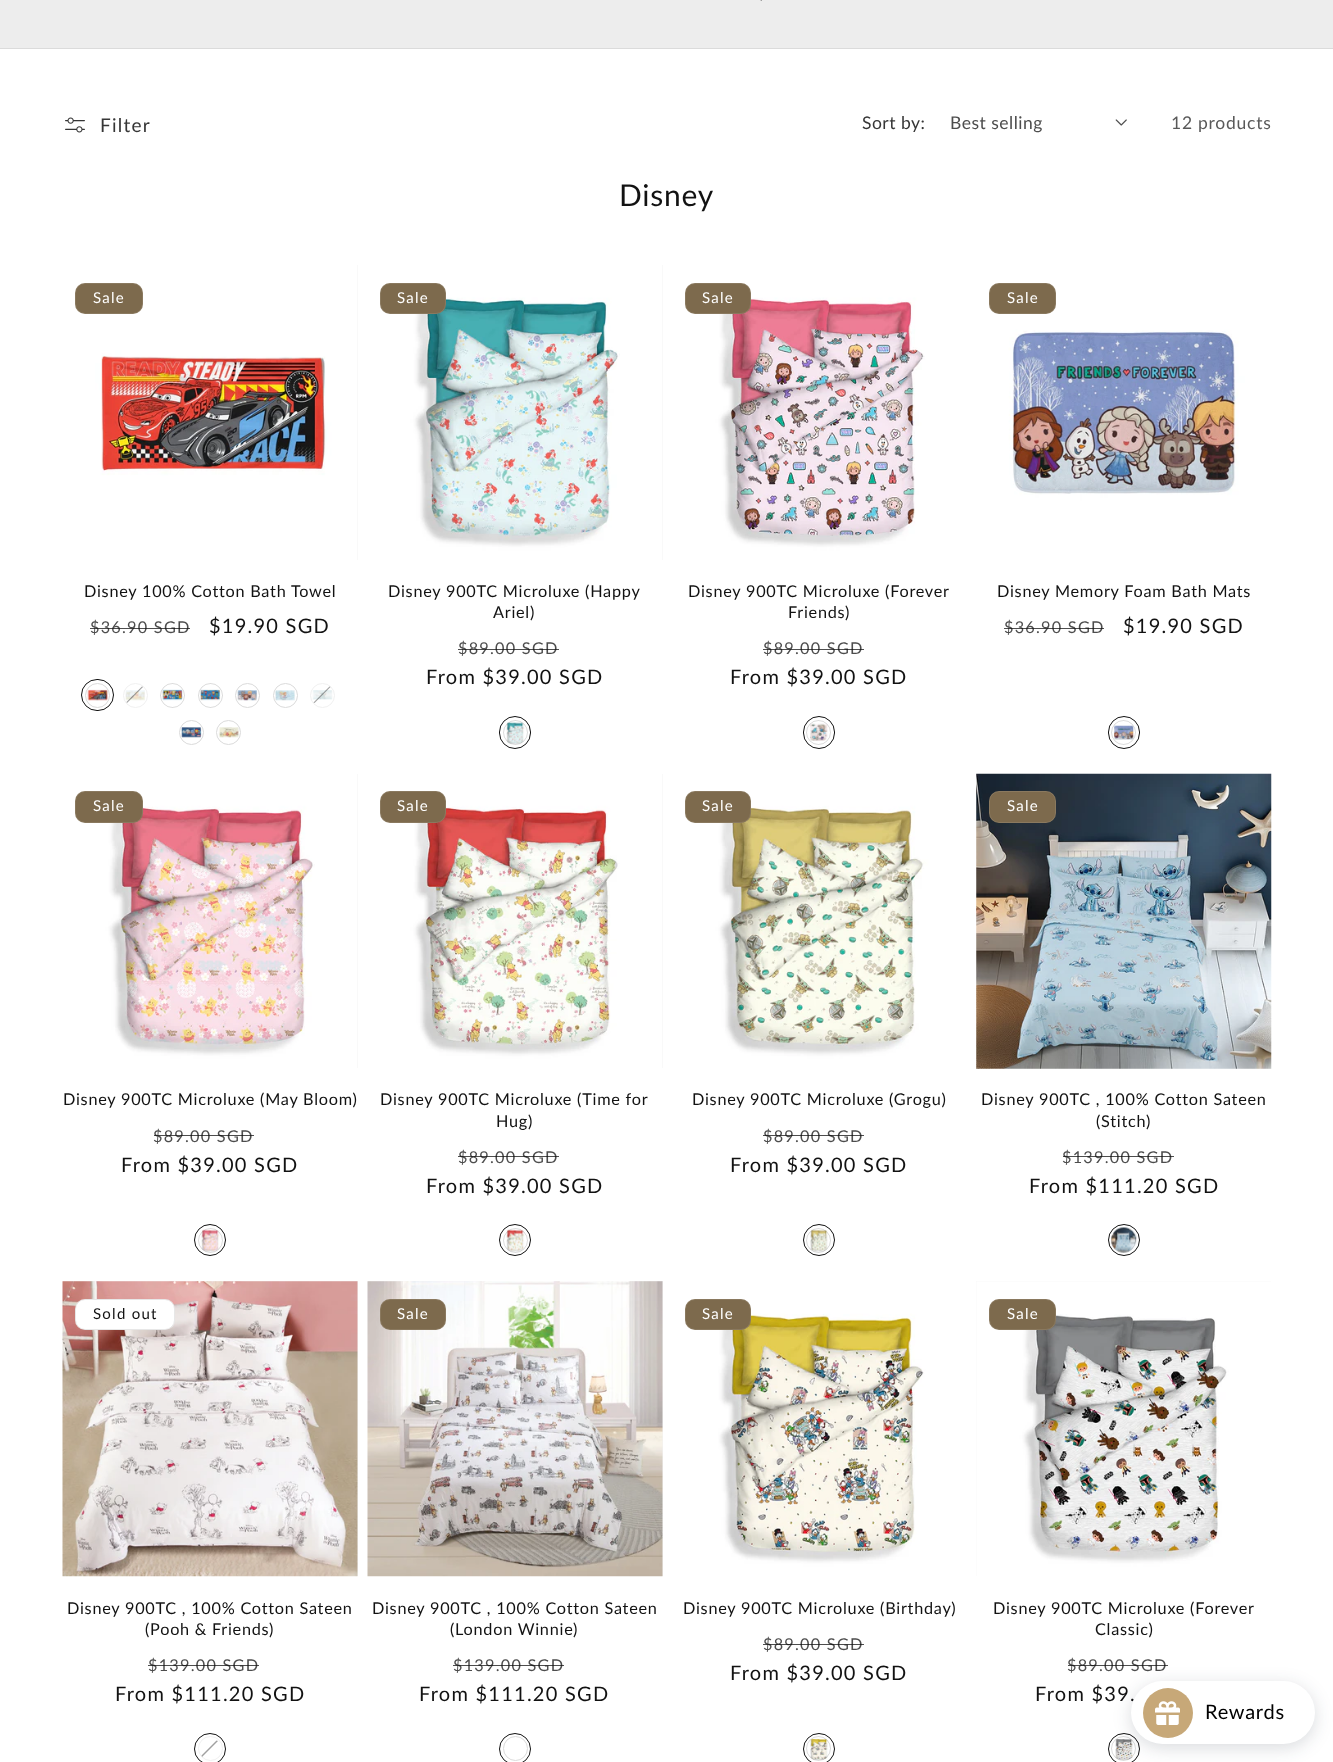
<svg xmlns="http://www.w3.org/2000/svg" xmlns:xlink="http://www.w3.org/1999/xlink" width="1333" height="1762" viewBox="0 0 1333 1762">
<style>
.cls-1{font:19px Lato;letter-spacing:1.25px;fill:#363636}
.cls-2{font:17.5px Lato;letter-spacing:0.5px;fill:#363636}
.cls-3{font:17.5px Lato;letter-spacing:0.5px;fill:#4d4d4d}
.cls-4{font:17.5px Lato;letter-spacing:0.75px;fill:#595959}
.cls-5{font:30px Lato;letter-spacing:0.75px;fill:#121212}
.cls-6{font:15px Lato;letter-spacing:1.25px;fill:#ffffff}
.cls-7{font:16.25px Lato;letter-spacing:0.75px;fill:#121212}
.cls-8{font:16.25px Lato;letter-spacing:1.25px;fill:#4d4d4d}
.cls-9{font:20px Lato;letter-spacing:1.25px;fill:#121212}
.cls-10{font:15px Lato;letter-spacing:1.25px;fill:#121212}
.cls-11{font:20px Lato;letter-spacing:0.75px;fill:#000000}
</style>
<rect width="100%" height="100%" fill="#ffffff"/>
<rect fill="#ededed" x="0" y="0" width="1333" height="48"/>
<rect fill="#dbdbdb" x="0" y="48" width="1333" height="1"/>
<image xlink:href="image0.png" x="760" y="0" width="2" height="1"/>
<image xlink:href="image1.png" x="65" y="117" width="20" height="16"/>
<image xlink:href="image2.png" x="1115" y="119" width="12" height="7"/>
<rect fill="#f3f3f3" x="357" y="265" width="1" height="295"/>
<image xlink:href="image3.png" x="63" y="265" width="295" height="295"/>
<rect fill="#7d6a4d" x="75" y="283" width="68" height="31" rx="10"/>
<rect fill="none" stroke="#ffffff" stroke-opacity="0.1" x="75.5" y="283.5" width="67" height="30" rx="9.5"/>
<image xlink:href="image4.png" x="87" y="689" width="21" height="12"/>
<circle fill="none" stroke="#dbdbdb" cx="97.5" cy="695.5" r="12"/>
<rect fill="none" stroke="#121212" x="81.5" y="679.5" width="32" height="31" rx="15.5"/>
<image xlink:href="image5.png" x="125" y="690" width="20" height="11"/>
<circle fill="none" stroke="#f1f1f1" cx="135.5" cy="695.5" r="12"/>
<path fill="#121212" fill-opacity="0.4" d="M143 687L127 703L126.5 702L142 686.5Z"/>
<image xlink:href="image6.png" x="162" y="689" width="21" height="12"/>
<circle fill="none" stroke="#121212" stroke-opacity="0.15" cx="172.5" cy="695.5" r="12"/>
<image xlink:href="image7.png" x="200" y="689" width="21" height="12"/>
<circle fill="none" stroke="#121212" stroke-opacity="0.15" cx="210.5" cy="695.5" r="12"/>
<image xlink:href="image8.png" x="237" y="690" width="20" height="11"/>
<circle fill="none" stroke="#dbdbdb" cx="247.5" cy="695.5" r="12"/>
<image xlink:href="image9.png" x="275" y="690" width="20" height="11"/>
<circle fill="none" stroke="#dbdbdb" cx="285.5" cy="695.5" r="12"/>
<image xlink:href="image10.png" x="312" y="690" width="21" height="10"/>
<circle fill="none" stroke="#f1f1f1" cx="322.5" cy="695.5" r="12"/>
<path fill="#121212" fill-opacity="0.4" d="M330.5 687L314.5 703L313.5 702.5L329.5 686.5Z"/>
<image xlink:href="image11.png" x="181" y="727" width="21" height="11"/>
<circle fill="none" stroke="#dbdbdb" cx="191.5" cy="732.5" r="12"/>
<image xlink:href="image12.png" x="218" y="727" width="21" height="11"/>
<circle fill="none" stroke="#dbdbdb" cx="228.5" cy="732.5" r="12"/>
<rect fill="#f3f3f3" x="662" y="265" width="1" height="295"/>
<image xlink:href="image13.png" x="368" y="265" width="295" height="295"/>
<rect fill="#7d6a4d" x="380" y="283" width="66" height="31" rx="10"/>
<rect fill="none" stroke="#ffffff" stroke-opacity="0.1" x="380.5" y="283.5" width="65" height="30" rx="9.5"/>
<image xlink:href="image14.png" x="506" y="722" width="19" height="22"/>
<circle fill="none" stroke="#121212" stroke-opacity="0.15" cx="515.5" cy="732.5" r="12"/>
<rect fill="none" stroke="#121212" x="499.5" y="716.5" width="31" height="32" rx="15.5"/>
<image xlink:href="image15.png" x="673" y="265" width="293" height="295"/>
<rect fill="#7d6a4d" x="685" y="283" width="66" height="31" rx="10"/>
<rect fill="none" stroke="#ffffff" stroke-opacity="0.1" x="685.5" y="283.5" width="65" height="30" rx="9.5"/>
<image xlink:href="image16.png" x="810" y="723" width="18" height="18"/>
<circle fill="none" stroke="#121212" stroke-opacity="0.15" cx="818.5" cy="732.5" r="12"/>
<rect fill="none" stroke="#121212" x="803.5" y="716.5" width="31" height="32" rx="15.5"/>
<image xlink:href="image17.png" x="976" y="265" width="295" height="295"/>
<rect fill="#7d6a4d" x="989" y="283" width="67" height="31" rx="10"/>
<rect fill="none" stroke="#ffffff" stroke-opacity="0.1" x="989.5" y="283.5" width="66" height="30" rx="9.5"/>
<image xlink:href="image18.png" x="1114" y="725" width="20" height="15"/>
<circle fill="none" stroke="#121212" stroke-opacity="0.15" cx="1123.5" cy="732.5" r="12"/>
<rect fill="none" stroke="#121212" x="1108.5" y="716.5" width="31" height="32" rx="15.5"/>
<rect fill="#f3f3f3" x="357" y="774" width="1" height="294"/>
<image xlink:href="image19.png" x="63" y="774" width="295" height="294"/>
<rect fill="#7d6a4d" x="75" y="791" width="68" height="32" rx="10"/>
<rect fill="none" stroke="#ffffff" stroke-opacity="0.1" x="75.5" y="791.5" width="67" height="31" rx="9.5"/>
<image xlink:href="image20.png" x="201" y="1229" width="19" height="23"/>
<circle fill="none" stroke="#121212" stroke-opacity="0.15" cx="210.5" cy="1240.5" r="12"/>
<circle fill="none" stroke="#121212" cx="210" cy="1240" r="15.5"/>
<rect fill="#f3f3f3" x="662" y="774" width="1" height="294"/>
<image xlink:href="image21.png" x="368" y="774" width="295" height="294"/>
<rect fill="#7d6a4d" x="380" y="791" width="66" height="32" rx="10"/>
<rect fill="none" stroke="#ffffff" stroke-opacity="0.1" x="380.5" y="791.5" width="65" height="31" rx="9.5"/>
<image xlink:href="image22.png" x="506" y="1229" width="19" height="23"/>
<circle fill="none" stroke="#121212" stroke-opacity="0.15" cx="515.5" cy="1240.5" r="12"/>
<circle fill="none" stroke="#121212" cx="515" cy="1240" r="15.5"/>
<image xlink:href="image23.png" x="673" y="774" width="293" height="294"/>
<rect fill="#7d6a4d" x="685" y="791" width="66" height="32" rx="10"/>
<rect fill="none" stroke="#ffffff" stroke-opacity="0.1" x="685.5" y="791.5" width="65" height="31" rx="9.5"/>
<image xlink:href="image24.png" x="810" y="1229" width="18" height="23"/>
<circle fill="none" stroke="#121212" stroke-opacity="0.15" cx="818.5" cy="1240.5" r="12"/>
<circle fill="none" stroke="#121212" cx="819" cy="1240" r="15.5"/>
<image xlink:href="image25.png" x="976" y="773" width="296" height="296"/>
<rect fill="#7d6a4d" x="989" y="791" width="67" height="32" rx="10"/>
<rect fill="none" stroke="#ffffff" stroke-opacity="0.1" x="989.5" y="791.5" width="66" height="31" rx="9.5"/>
<image xlink:href="image26.png" x="1111" y="1227" width="26" height="26"/>
<circle fill="none" stroke="#121212" stroke-opacity="0.15" cx="1123.5" cy="1240.5" r="12"/>
<circle fill="none" stroke="#121212" cx="1124" cy="1240" r="15.5"/>
<rect fill="#f3f3f3" x="63" y="1281" width="295" height="295"/>
<image xlink:href="image27.png" x="62" y="1281" width="296" height="296"/>
<rect fill="#ffffff" x="75" y="1299" width="100" height="31" rx="10"/>
<rect fill="none" stroke="#121212" stroke-opacity="0.1" x="75.5" y="1299.5" width="99" height="30" rx="9.5"/>
<circle fill="none" stroke="#121212" cx="210" cy="1749" r="15.5"/>
<circle fill="none" stroke="#f1f1f1" cx="210.5" cy="1748.5" r="12"/>
<path fill="#a0a0a0" d="M218 1741L202 1757L201.5 1755.5L216.5 1740.5Z"/>
<rect fill="#f3f3f3" x="368" y="1281" width="295" height="295"/>
<image xlink:href="image28.png" x="367" y="1281" width="296" height="296"/>
<rect fill="#7d6a4d" x="380" y="1299" width="66" height="31" rx="10"/>
<rect fill="none" stroke="#ffffff" stroke-opacity="0.1" x="380.5" y="1299.5" width="65" height="30" rx="9.5"/>
<circle fill="none" stroke="#dbdbdb" cx="515.5" cy="1748.5" r="12"/>
<circle fill="none" stroke="#121212" cx="515" cy="1749" r="15.5"/>
<image xlink:href="image29.png" x="673" y="1281" width="293" height="295"/>
<rect fill="#7d6a4d" x="685" y="1299" width="66" height="31" rx="10"/>
<rect fill="none" stroke="#ffffff" stroke-opacity="0.1" x="685.5" y="1299.5" width="65" height="30" rx="9.5"/>
<image xlink:href="image30.png" x="810" y="1738" width="18" height="22"/>
<circle fill="none" stroke="#121212" stroke-opacity="0.15" cx="818.5" cy="1748.5" r="12"/>
<circle fill="none" stroke="#121212" cx="819" cy="1749" r="15.5"/>
<rect fill="#f3f3f3" x="976" y="1281" width="295" height="295"/>
<image xlink:href="image31.png" x="976" y="1281" width="295" height="295"/>
<rect fill="#7d6a4d" x="989" y="1299" width="67" height="31" rx="10"/>
<rect fill="none" stroke="#ffffff" stroke-opacity="0.1" x="989.5" y="1299.5" width="66" height="30" rx="9.5"/>
<image xlink:href="image32.png" x="1115" y="1739" width="18" height="21"/>
<circle fill="none" stroke="#121212" stroke-opacity="0.15" cx="1123.5" cy="1748.5" r="12"/>
<circle fill="none" stroke="#121212" cx="1124" cy="1749" r="15.5"/>
<text class="cls-1" x="100" y="132">Filter</text>
<text class="cls-2" x="862" y="129">Sort by:</text>
<text class="cls-3" x="950" y="129">Best selling</text>
<text class="cls-4" x="1171" y="129">12 products</text>
<text class="cls-5" x="619" y="206">Disney</text>
<text class="cls-6" x="93" y="303">Sale</text>
<text class="cls-7" x="84" y="597">Disney 100% Cotton Bath Towel</text>
<text class="cls-8" x="90" y="633">$36.90 SGD</text>
<rect fill="#121212" fill-opacity="0.75" x="90" y="628" width="100" height="1"/>
<text class="cls-9" x="209" y="633">$19.90 SGD</text>
<text class="cls-6" x="397" y="303">Sale</text>
<text class="cls-7" x="388" y="597">Disney 900TC Microluxe (Happy</text>
<text class="cls-7" x="493" y="618">Ariel)</text>
<text class="cls-8" x="458" y="654">$89.00 SGD</text>
<rect fill="#121212" fill-opacity="0.75" x="458" y="649" width="101" height="1"/>
<text class="cls-9" x="426" y="684">From $39.00 SGD</text>
<text class="cls-6" x="702" y="303">Sale</text>
<text class="cls-7" x="688" y="597">Disney 900TC Microluxe (Forever</text>
<text class="cls-7" x="788" y="618">Friends)</text>
<text class="cls-8" x="763" y="654">$89.00 SGD</text>
<rect fill="#121212" fill-opacity="0.75" x="763" y="649" width="101" height="1"/>
<text class="cls-9" x="730" y="684">From $39.00 SGD</text>
<text class="cls-6" x="1007" y="303">Sale</text>
<text class="cls-7" x="997" y="597">Disney Memory Foam Bath Mats</text>
<text class="cls-8" x="1004" y="633">$36.90 SGD</text>
<rect fill="#121212" fill-opacity="0.75" x="1004" y="628" width="100" height="1"/>
<text class="cls-9" x="1123" y="633">$19.90 SGD</text>
<text class="cls-6" x="93" y="811">Sale</text>
<text class="cls-7" x="63" y="1105">Disney 900TC Microluxe (May Bloom)</text>
<text class="cls-8" x="153" y="1142">$89.00 SGD</text>
<rect fill="#121212" fill-opacity="0.75" x="154" y="1135" width="100" height="1"/>
<text class="cls-9" x="121" y="1172">From $39.00 SGD</text>
<text class="cls-6" x="397" y="811">Sale</text>
<text class="cls-7" x="380" y="1105">Disney 900TC Microluxe (Time for</text>
<text class="cls-7" x="496" y="1127">Hug)</text>
<text class="cls-8" x="458" y="1163">$89.00 SGD</text>
<rect fill="#121212" fill-opacity="0.75" x="458" y="1156" width="101" height="1"/>
<text class="cls-9" x="426" y="1193">From $39.00 SGD</text>
<text class="cls-6" x="702" y="811">Sale</text>
<text class="cls-7" x="692" y="1105">Disney 900TC Microluxe (Grogu)</text>
<text class="cls-8" x="763" y="1142">$89.00 SGD</text>
<rect fill="#121212" fill-opacity="0.75" x="763" y="1135" width="101" height="1"/>
<text class="cls-9" x="730" y="1172">From $39.00 SGD</text>
<text class="cls-6" x="1007" y="811">Sale</text>
<text class="cls-7" x="981" y="1105">Disney 900TC , 100% Cotton Sateen</text>
<text class="cls-7" x="1096" y="1127">(Stitch)</text>
<text class="cls-8" x="1062" y="1163">$139.00 SGD</text>
<rect fill="#121212" fill-opacity="0.75" x="1063" y="1156" width="111" height="1"/>
<text class="cls-9" x="1029" y="1193">From $111.20 SGD</text>
<text class="cls-10" x="93" y="1319">Sold out</text>
<text class="cls-7" x="67" y="1614">Disney 900TC , 100% Cotton Sateen</text>
<text class="cls-7" x="145" y="1635">(Pooh &amp; Friends)</text>
<text class="cls-8" x="148" y="1671">$139.00 SGD</text>
<rect fill="#121212" fill-opacity="0.75" x="148" y="1665" width="111" height="1"/>
<text class="cls-9" x="115" y="1701">From $111.20 SGD</text>
<text class="cls-6" x="397" y="1319">Sale</text>
<text class="cls-7" x="372" y="1614">Disney 900TC , 100% Cotton Sateen</text>
<text class="cls-7" x="450" y="1635">(London Winnie)</text>
<text class="cls-8" x="453" y="1671">$139.00 SGD</text>
<rect fill="#121212" fill-opacity="0.75" x="453" y="1665" width="111" height="1"/>
<text class="cls-9" x="419" y="1701">From $111.20 SGD</text>
<text class="cls-6" x="702" y="1319">Sale</text>
<text class="cls-7" x="683" y="1614">Disney 900TC Microluxe (Birthday)</text>
<text class="cls-8" x="763" y="1650">$89.00 SGD</text>
<rect fill="#121212" fill-opacity="0.75" x="763" y="1644" width="101" height="1"/>
<text class="cls-9" x="730" y="1680">From $39.00 SGD</text>
<text class="cls-6" x="1007" y="1319">Sale</text>
<text class="cls-7" x="993" y="1614">Disney 900TC Microluxe (Forever</text>
<text class="cls-7" x="1095" y="1635">Classic)</text>
<text class="cls-8" x="1067" y="1671">$89.00 SGD</text>
<rect fill="#121212" fill-opacity="0.75" x="1068" y="1665" width="100" height="1"/>
<text class="cls-9" x="1035" y="1701">From $39.</text>
<rect fill="#112233" fill-opacity="0.16" filter="blur(9px)" x="1131" y="1685" width="184" height="63" rx="31.5"/>
<rect fill="#ffffff" x="1131" y="1681" width="184" height="63" rx="31.5"/>
<circle fill="#c7a878" cx="1168" cy="1713" r="25"/>
<image xlink:href="image33.png" x="1155" y="1701" width="25" height="24"/>
<text class="cls-11" x="1205" y="1719">Rewards</text>
</svg>
